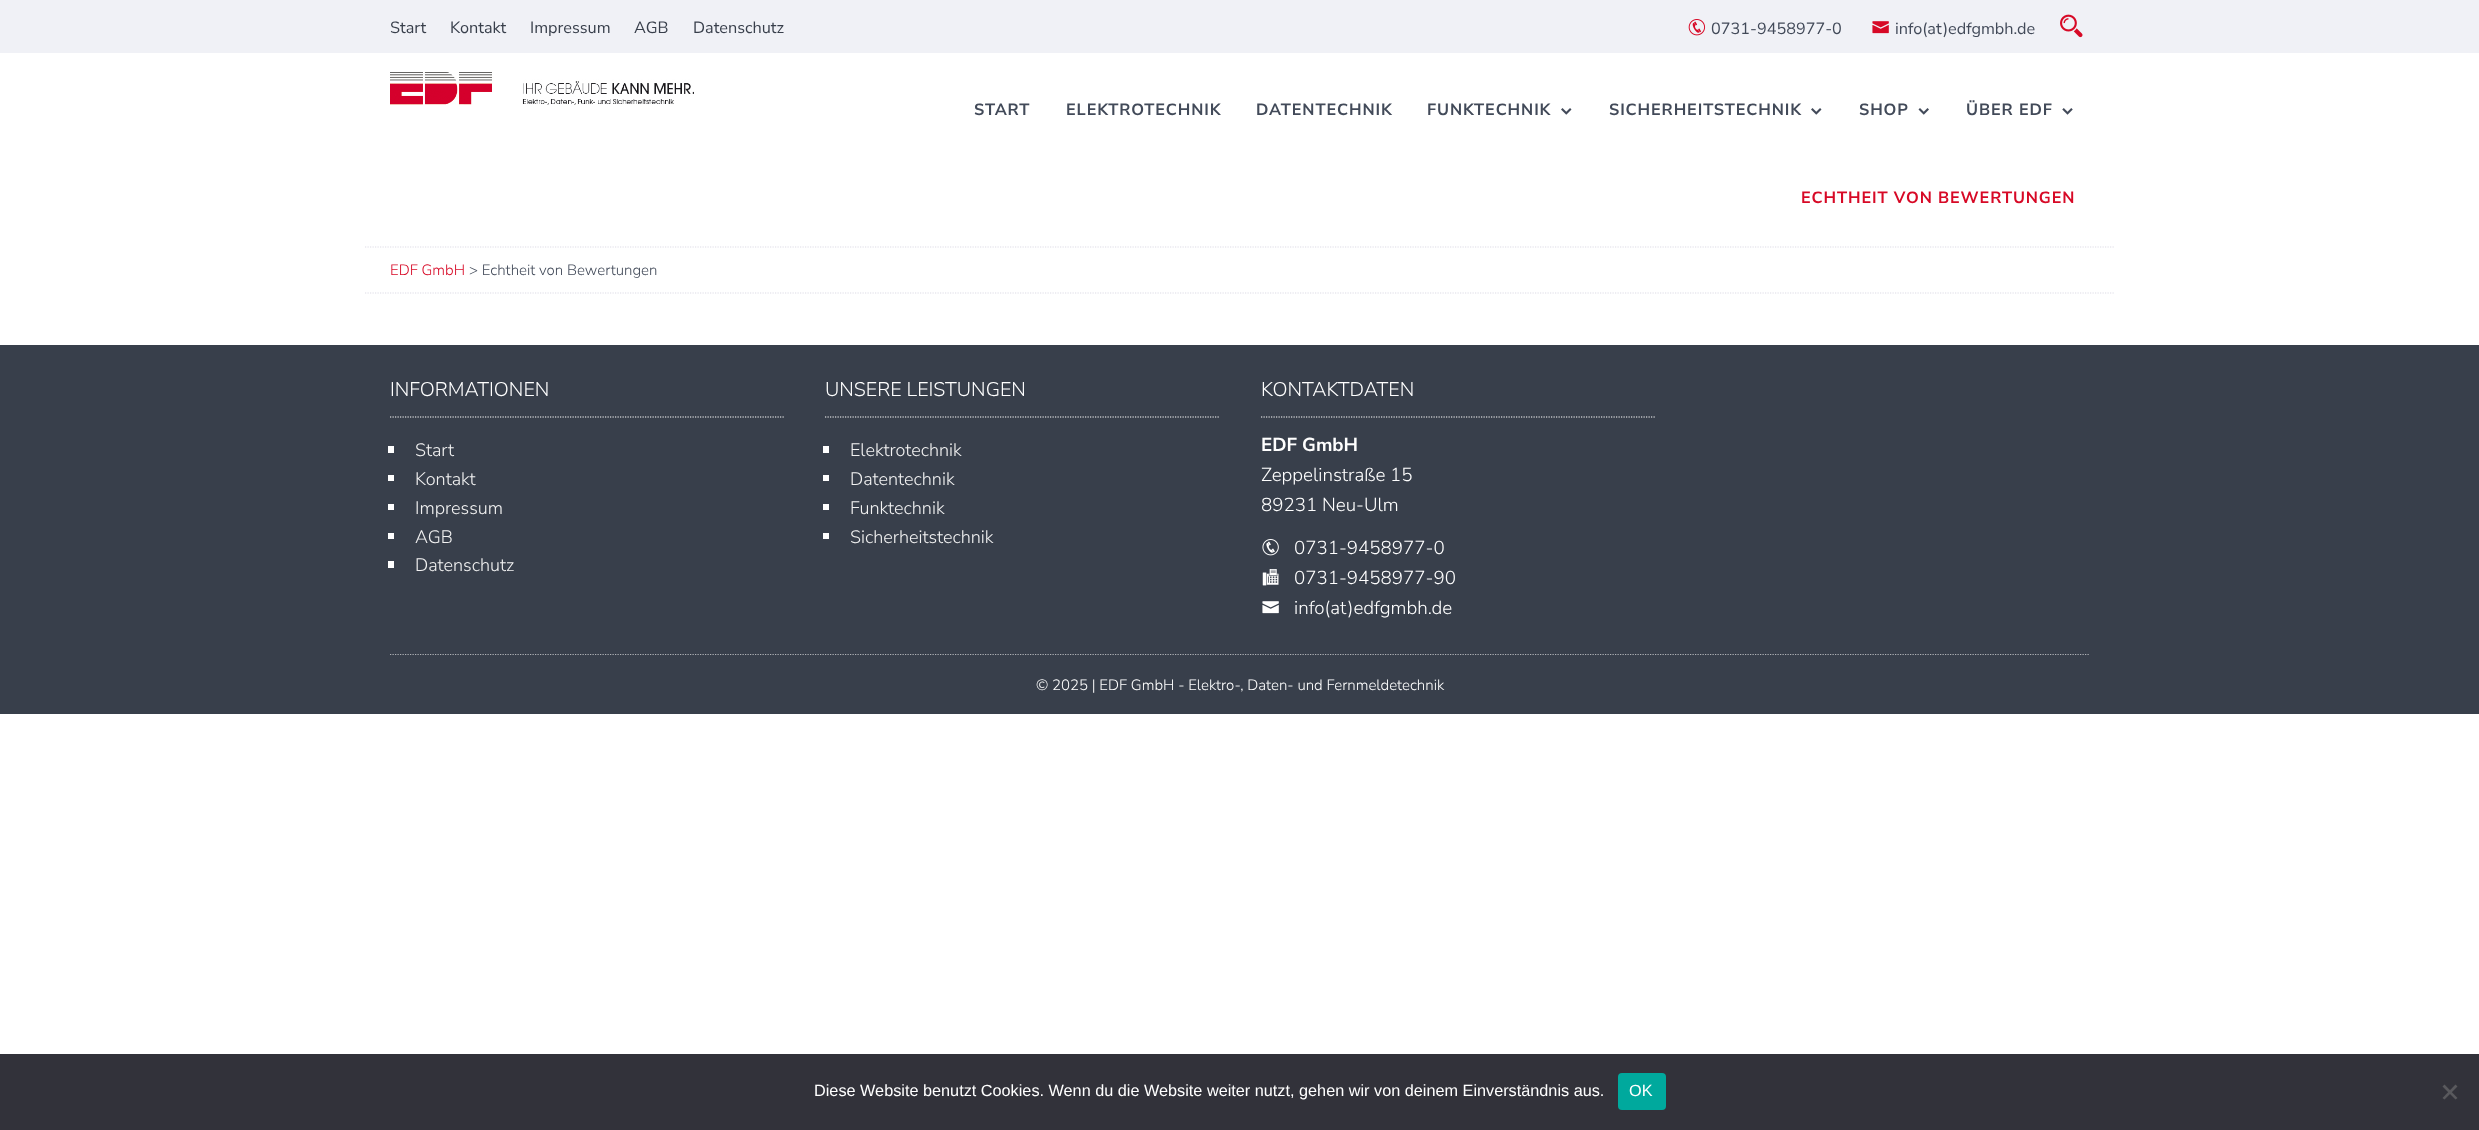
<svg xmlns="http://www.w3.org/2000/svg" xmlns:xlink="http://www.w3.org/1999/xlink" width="2479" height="1130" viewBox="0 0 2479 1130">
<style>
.cls-1{font:16.25px Nunito Sans;fill:#383f4b}
.cls-2{font:16.25px Nunito Sans;fill:#424a59}
.cls-3{font:bold 16.25px Nunito Sans;letter-spacing:0.9px;fill:#424a59}
.cls-4{font:bold 16.25px Nunito Sans;letter-spacing:0.9px;fill:#d70926}
.cls-5{font:300 15px Nunito Sans;fill:#d70926}
.cls-6{font:300 15px Nunito Sans;fill:#424a59}
.cls-7{font:300 19.75px Nunito Sans;fill:#ffffff}
.cls-8{font:300 18px Nunito Sans;fill:#f2f2f2}
.cls-9{font:bold 18.75px Nunito Sans;fill:#ffffff}
.cls-10{font:300 18.75px Nunito Sans;fill:#ffffff}
.cls-11{font:300 15px Nunito Sans;fill:#ffffff}
.cls-12{font:16.25px Liberation Sans;fill:#ffffff}
</style>
<rect width="100%" height="100%" fill="#ffffff"/>
<rect fill="#f0f1f6" x="0" y="0" width="2479" height="53"/>
<image xlink:href="image0.png" x="1688" y="19" width="18" height="17"/>
<image xlink:href="image1.png" x="1872" y="21" width="17" height="13"/>
<image xlink:href="image2.png" x="2060" y="14" width="23" height="24"/>
<image xlink:href="image3.png" x="390" y="72" width="304" height="33"/>
<image xlink:href="image4.png" x="1561" y="108" width="11" height="7"/>
<image xlink:href="image4.png" x="1811" y="108" width="11" height="7"/>
<image xlink:href="image5.png" x="1918" y="108" width="11" height="7"/>
<image xlink:href="image6.png" x="2062" y="108" width="11" height="7"/>
<path fill="none" stroke="#dddce6" stroke-width="1.2" stroke-dasharray="1.25 1.25" d="M365 247H2115"/>
<path fill="none" stroke="#dddce6" stroke-width="1.2" stroke-dasharray="1.25 1.25" d="M365 293H2115"/>
<rect fill="#383f4b" x="0" y="345" width="2479" height="369"/>
<path fill="none" stroke="#afb2b7" stroke-width="1.2" stroke-dasharray="1.25 1.25" d="M390 654.5H2090"/>
<path fill="none" stroke="#ffffff" stroke-width="1.2" stroke-dasharray="1.25 1.25" d="M390 417H784"/>
<rect fill="#ffffff" x="388" y="446" width="6" height="7"/>
<rect fill="#ffffff" x="388" y="475" width="6" height="6"/>
<rect fill="#ffffff" x="388" y="504" width="6" height="6"/>
<rect fill="#ffffff" x="388" y="533" width="6" height="6"/>
<rect fill="#ffffff" x="388" y="561" width="6" height="7"/>
<path fill="none" stroke="#ffffff" stroke-width="1.2" stroke-dasharray="1.25 1.25" d="M825 417H1219"/>
<rect fill="#ffffff" x="823" y="446" width="6" height="7"/>
<rect fill="#ffffff" x="823" y="475" width="6" height="6"/>
<rect fill="#ffffff" x="823" y="504" width="6" height="6"/>
<rect fill="#ffffff" x="823" y="533" width="6" height="6"/>
<path fill="none" stroke="#ffffff" stroke-width="1.2" stroke-dasharray="1.25 1.25" d="M1261 417H1655"/>
<image xlink:href="image7.png" x="1262" y="539" width="17" height="17"/>
<image xlink:href="image8.png" x="1262" y="569" width="17" height="17"/>
<image xlink:href="image9.png" x="1262" y="601" width="17" height="13"/>
<rect fill="#32323a" x="0" y="1054" width="2479" height="76"/>
<rect fill="#00a99d" x="1618" y="1073" width="48" height="37" rx="4"/>
<path fill="#59595d" d="M2455.5 1084.5L2457.5 1086.5L2444.5 1099.5L2442.5 1098Z"/>
<path fill="#59595d" d="M2442.5 1086.5L2444.5 1084.5L2457.5 1098L2455.5 1099.5Z"/>
<text class="cls-1" x="390" y="33">Start</text>
<text class="cls-1" x="450" y="33">Kontakt</text>
<text class="cls-1" x="530" y="33">Impressum</text>
<text class="cls-1" x="634" y="33">AGB</text>
<text class="cls-1" x="693" y="33">Datenschutz</text>
<text class="cls-2" x="1711" y="34">0731-9458977-0</text>
<text class="cls-2" x="1895" y="34">info(at)edfgmbh.de</text>
<text class="cls-3" x="974" y="115">START</text>
<text class="cls-3" x="1066" y="115">ELEKTROTECHNIK</text>
<text class="cls-3" x="1256" y="115">DATENTECHNIK</text>
<text class="cls-3" x="1427" y="115">FUNKTECHNIK</text>
<text class="cls-3" x="1609" y="115">SICHERHEITSTECHNIK</text>
<text class="cls-3" x="1859" y="115">SHOP</text>
<text class="cls-3" x="1966" y="115">ÜBER EDF</text>
<text class="cls-4" x="1801" y="203">ECHTHEIT VON BEWERTUNGEN</text>
<text class="cls-5" x="390" y="275">EDF GmbH</text>
<text class="cls-6" x="469" y="275">&gt; Echtheit von Bewertungen</text>
<text class="cls-7" x="390" y="396">INFORMATIONEN</text>
<text class="cls-8"><tspan x="415" y="456">Start</tspan><tspan x="415" y="485">Kontakt</tspan><tspan x="415" y="514">Impressum</tspan><tspan x="415" y="543">AGB</tspan><tspan x="415" y="571">Datenschutz</tspan></text>
<text class="cls-7" x="825" y="396">UNSERE LEISTUNGEN</text>
<text class="cls-8"><tspan x="850" y="456">Elektrotechnik</tspan><tspan x="850" y="485">Datentechnik</tspan><tspan x="850" y="514">Funktechnik</tspan><tspan x="850" y="543">Sicherheitstechnik</tspan></text>
<text class="cls-7" x="1261" y="396">KONTAKTDATEN</text>
<text class="cls-9" x="1261" y="451">EDF GmbH</text>
<text class="cls-10"><tspan x="1261" y="481">Zeppelinstraße 15</tspan><tspan x="1261" y="511">89231 Neu-Ulm</tspan></text>
<text class="cls-10"><tspan x="1294" y="554">0731-9458977-0</tspan><tspan x="1294" y="584">0731-9458977-90</tspan><tspan x="1294" y="614">info(at)edfgmbh.de</tspan></text>
<text class="cls-11" x="1036" y="690">© 2025 | EDF GmbH - Elektro-, Daten- und Fernmeldetechnik</text>
<text class="cls-12" x="814" y="1096">Diese Website benutzt Cookies. Wenn du die Website weiter nutzt, gehen wir von deinem Einverständnis aus.</text>
<text class="cls-12" x="1629" y="1096">OK</text>
</svg>
